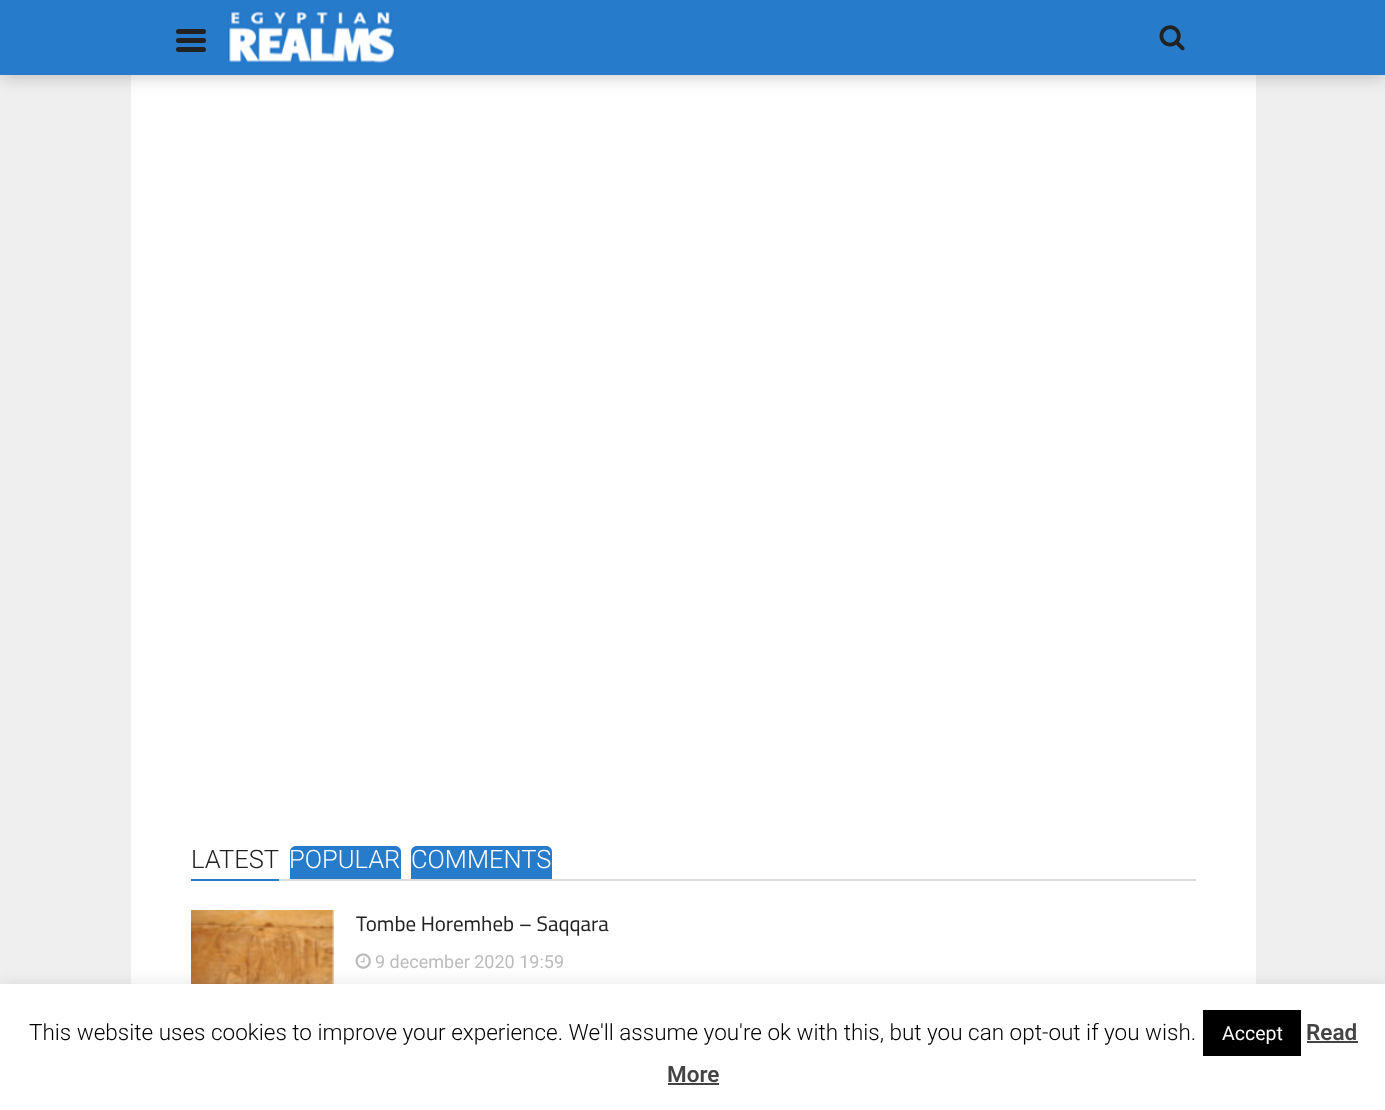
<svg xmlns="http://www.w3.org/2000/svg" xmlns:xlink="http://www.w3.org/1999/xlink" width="1385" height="1110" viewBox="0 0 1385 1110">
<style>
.cls-1{font:300 25.5px Roboto;fill:#222222}
.cls-2{font:300 25.5px Roboto;fill:#ffffff}
.cls-3{font:21px Cairo;fill:#222222}
.cls-4{font:18px Roboto;fill:#bbbbbb}
.cls-5{font:300 22.5px Roboto;fill:#000000}
.cls-6{font:19.5px Roboto;fill:#ffffff}
.cls-7{font:600 22.5px Roboto;fill:#444444}
</style>
<rect width="100%" height="100%" fill="#efefef"/>
<rect fill="#ffffff" x="131" y="75" width="1125" height="909"/>
<rect fill="#000000" fill-opacity="0.25" filter="blur(10px)" x="0" y="0" width="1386" height="75"/>
<rect fill="#277bcb" x="0" y="0" width="1385" height="75"/>
<rect fill="#222222" x="176" y="29" width="30" height="5" rx="2.5"/>
<rect fill="#222222" x="176" y="38" width="30" height="5" rx="2.5"/>
<rect fill="#222222" x="176" y="47" width="30" height="5" rx="2.5"/>
<image xlink:href="image0.png" x="228" y="10" width="168" height="54"/>
<image xlink:href="image1.png" x="1159" y="25" width="26" height="26"/>
<rect fill="#dadada" x="279" y="879" width="917" height="2"/>
<rect fill="#277bcb" x="191" y="879" width="88" height="2"/>
<path fill="#277bcb" d="M296 846H395C398.5 846 401 848.5 401 852V879H290V852C290 848.5 292.5 846 296 846Z"/>
<path fill="#277bcb" d="M417 846H546C549.5 846 552 848.5 552 852V879H411V852C411 848.5 413.5 846 417 846Z"/>
<image xlink:href="image2.png" x="191" y="910" width="143" height="74"/>
<image xlink:href="image3.png" x="355" y="953" width="16" height="16"/>
<rect fill="#acabab" fill-opacity="0.3" filter="blur(7.5px)" x="0" y="983" width="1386" height="126"/>
<rect fill="#ffffff" x="0" y="984" width="1385" height="126"/>
<rect fill="#000000" x="1203" y="1010" width="98" height="46"/>
<rect fill="#444444" x="1307" y="1041" width="51" height="2"/>
<rect fill="#444444" x="668" y="1083" width="51" height="2"/>
<text class="cls-1" x="191" y="868">LATEST</text>
<text class="cls-2" x="289" y="868">POPULAR</text>
<text class="cls-2" x="411" y="868">COMMENTS</text>
<text class="cls-3" x="356" y="931">Tombe Horemheb – Saqqara</text>
<text class="cls-4" x="375" y="968">9 december 2020 19:59</text>
<text class="cls-5" x="29" y="1040">This website uses cookies to improve your experience. We'll assume you're ok with this, but you can opt-out if you wish.</text>
<text class="cls-6" x="1222" y="1040">Accept</text>
<text class="cls-7" x="1306" y="1040">Read</text>
<text class="cls-7" x="667" y="1082">More</text>
</svg>
